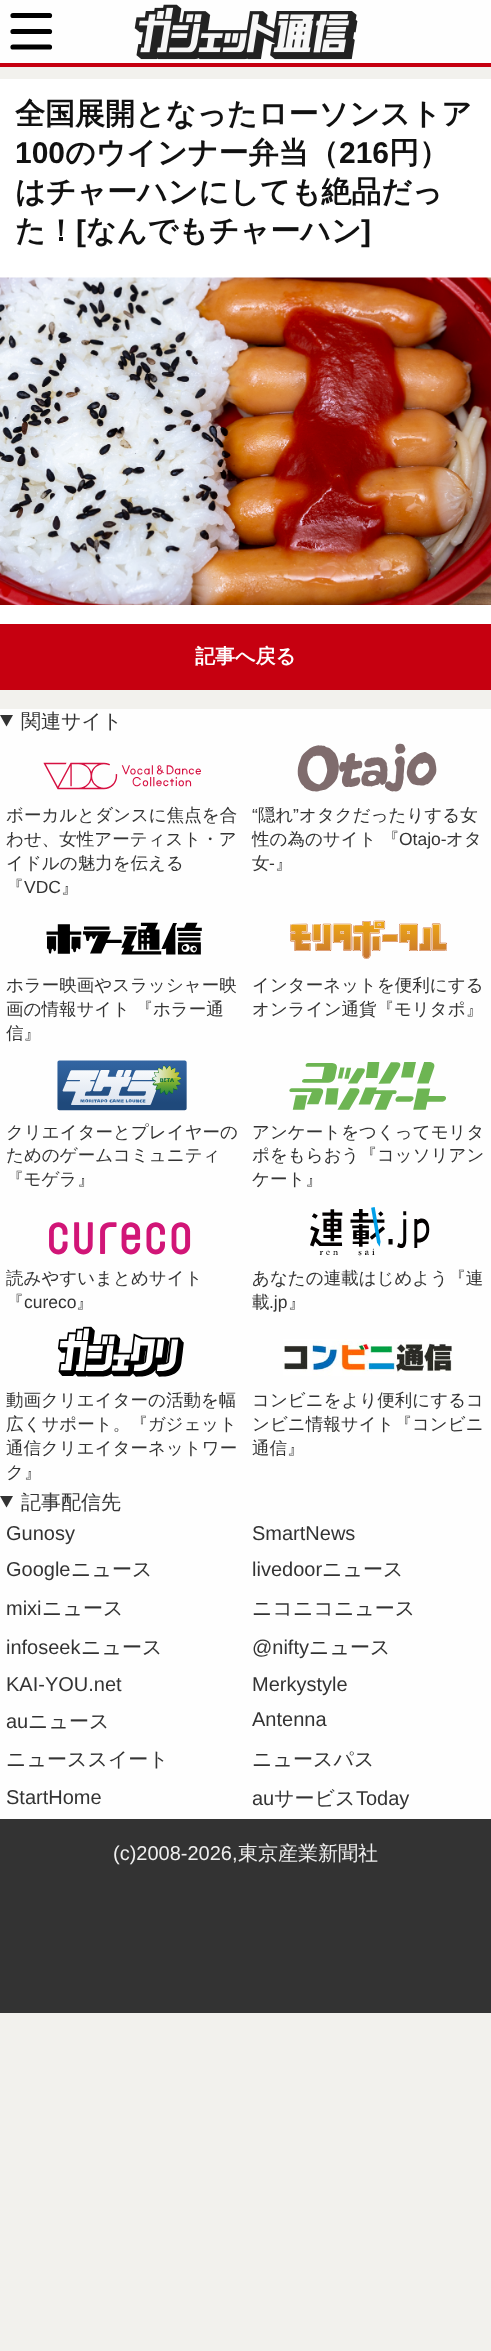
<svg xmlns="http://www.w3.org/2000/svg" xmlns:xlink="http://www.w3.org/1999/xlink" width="491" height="2351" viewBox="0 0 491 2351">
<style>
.cls-1{font:bold 30px WenQuanYi Zen Hei;fill:#111111}
.cls-2{font:bold 30px Liberation Sans;fill:#111111}
.cls-3{font:bold 20px WenQuanYi Zen Hei;fill:#fefefe}
.cls-4{font:500 20px WenQuanYi Zen Hei;fill:#333333}
.cls-5{font:500 17.5px WenQuanYi Zen Hei;fill:#333333}
.cls-6{font:17.5px Liberation Sans;fill:#333333}
.cls-7{font:20px Liberation Sans;fill:#333333}
.cls-8{font:20px Liberation Sans;fill:#efefef}
.cls-9{font:500 20px WenQuanYi Zen Hei;fill:#efefef}
</style>
<rect width="100%" height="100%" fill="#f2f1ed"/>
<rect fill="#fefefe" x="0" y="0" width="491" height="63"/>
<path fill="none" stroke="#000000" stroke-width="5.2" stroke-linecap="round" stroke-linejoin="round" d="M13 15.5H49.5M13 31.5H49.5M13 47H49.5"/>
<image xlink:href="image0.png" x="134" y="4" width="224" height="56"/>
<rect fill="#c60010" x="0" y="63" width="491" height="4"/>
<rect fill="#ffffff" x="0" y="79" width="491" height="545"/>
<image xlink:href="image1.png" x="0" y="277" width="491" height="328"/>
<rect fill="#c60010" x="0" y="624" width="491" height="66"/>
<rect fill="#fefefe" x="0" y="709" width="491" height="1110"/>
<path fill="#333333" d="M0 715H13L6.5 726.5Z"/>
<image xlink:href="image2.png" x="43" y="762" width="158" height="28"/>
<image xlink:href="image3.png" x="297" y="743" width="140" height="49"/>
<image xlink:href="image4.png" x="46" y="922" width="156" height="33"/>
<image xlink:href="image5.png" x="290" y="920" width="157" height="39"/>
<image xlink:href="image6.png" x="57" y="1060" width="130" height="51"/>
<image xlink:href="image7.png" x="289" y="1062" width="157" height="48"/>
<image xlink:href="image8.png" x="49" y="1222" width="142" height="33"/>
<image xlink:href="image9.png" x="310" y="1207" width="120" height="49"/>
<image xlink:href="image10.png" x="58" y="1326" width="126" height="51"/>
<image xlink:href="image11.png" x="283" y="1339" width="169" height="37"/>
<path fill="#333333" d="M0 1496H13L6.5 1507.5Z"/>
<rect fill="#333333" x="0" y="1819" width="491" height="194"/>
<text class="cls-1" x="15" y="124">全国展開となったローソンストア</text>
<text class="cls-2" x="15" y="163">100</text>
<text class="cls-1" x="65" y="163">のウインナー弁当（</text>
<text class="cls-2" x="339" y="163">216</text>
<text class="cls-1" x="389" y="163">円）</text>
<text class="cls-1"><tspan x="15" y="202">はチャーハンにしても絶品だっ</tspan><tspan x="15" y="241">た！</tspan></text>
<text class="cls-2" x="76" y="241">[</text>
<text class="cls-1" x="86" y="241">なんでもチャーハン</text>
<text class="cls-2" x="361" y="241">]</text>
<text class="cls-3" x="195" y="663">記事へ戻る</text>
<text class="cls-4" x="21" y="728">関連サイト</text>
<text class="cls-5"><tspan x="6" y="821">ボーカルとダンスに焦点を合</tspan><tspan x="6" y="845">わせ、女性アーティスト・ア</tspan><tspan x="6" y="869">イドルの魅力を伝える</tspan><tspan x="6" y="893">『</tspan></text>
<text class="cls-6" x="24" y="893">VDC</text>
<text class="cls-5" x="61" y="893">』</text>
<text class="cls-6" x="252" y="821">“</text>
<text class="cls-5" x="258" y="821">隠れ</text>
<text class="cls-6" x="293" y="821">”</text>
<text class="cls-5" x="299" y="821">オタクだったりする女</text>
<text class="cls-5" x="252" y="845">性の為のサイト 『</text>
<text class="cls-6" x="399" y="845">Otajo-</text>
<text class="cls-5" x="446" y="845">オタ</text>
<text class="cls-5" x="252" y="869">女</text>
<text class="cls-6" x="269" y="869">-</text>
<text class="cls-5" x="275" y="869">』</text>
<text class="cls-5"><tspan x="6" y="991">ホラー映画やスラッシャー映</tspan><tspan x="6" y="1015">画の情報サイト 『ホラー通</tspan><tspan x="6" y="1039">信』</tspan></text>
<text class="cls-5"><tspan x="252" y="991">インターネットを便利にする</tspan><tspan x="252" y="1015">オンライン通貨『モリタポ』</tspan></text>
<text class="cls-5"><tspan x="6" y="1138">クリエイターとプレイヤーの</tspan><tspan x="6" y="1161">ためのゲームコミュニティ</tspan><tspan x="6" y="1185">『モゲラ』</tspan></text>
<text class="cls-5"><tspan x="252" y="1138">アンケートをつくってモリタ</tspan><tspan x="252" y="1161">ポをもらおう『コッソリアン</tspan><tspan x="252" y="1185">ケート』</tspan></text>
<text class="cls-5"><tspan x="6" y="1284">読みやすいまとめサイト</tspan><tspan x="6" y="1308">『</tspan></text>
<text class="cls-6" x="24" y="1308">cureco</text>
<text class="cls-5" x="76" y="1308">』</text>
<text class="cls-5"><tspan x="252" y="1284">あなたの連載はじめよう『連</tspan><tspan x="252" y="1308">載</tspan></text>
<text class="cls-6" x="269" y="1308">.jp</text>
<text class="cls-5" x="288" y="1308">』</text>
<text class="cls-5"><tspan x="6" y="1406">動画クリエイターの活動を幅</tspan><tspan x="6" y="1430">広くサポート。『ガジェット</tspan><tspan x="6" y="1454">通信クリエイターネットワー</tspan><tspan x="6" y="1478">ク』</tspan></text>
<text class="cls-5"><tspan x="252" y="1406">コンビニをより便利にするコ</tspan><tspan x="252" y="1430">ンビニ情報サイト『コンビニ</tspan><tspan x="252" y="1454">通信』</tspan></text>
<text class="cls-4" x="21" y="1509">記事配信先</text>
<text class="cls-7" x="6" y="1540">Gunosy</text>
<text class="cls-7" x="252" y="1540">SmartNews</text>
<text class="cls-7" x="6" y="1576">Google</text>
<text class="cls-4" x="71" y="1576">ニュース</text>
<text class="cls-7" x="252" y="1576">livedoor</text>
<text class="cls-4" x="322" y="1576">ニュース</text>
<text class="cls-7" x="6" y="1615">mixi</text>
<text class="cls-4" x="42" y="1615">ニュース</text>
<text class="cls-4" x="252" y="1615">ニコニコニュース</text>
<text class="cls-7" x="6" y="1654">infoseek</text>
<text class="cls-4" x="81" y="1654">ニュース</text>
<text class="cls-7" x="252" y="1654">@nifty</text>
<text class="cls-4" x="309" y="1654">ニュース</text>
<text class="cls-7" x="6" y="1691">KAI-YOU.net</text>
<text class="cls-7" x="252" y="1691">Merkystyle</text>
<text class="cls-7" x="6" y="1728">au</text>
<text class="cls-4" x="28" y="1728">ニュース</text>
<text class="cls-7" x="252" y="1726">Antenna</text>
<text class="cls-4" x="6" y="1766">ニューススイート</text>
<text class="cls-4" x="252" y="1766">ニュースパス</text>
<text class="cls-7" x="6" y="1804">StartHome</text>
<text class="cls-7" x="252" y="1805">au</text>
<text class="cls-4" x="274" y="1805">サービス</text>
<text class="cls-7" x="356" y="1805">Today</text>
<text class="cls-8" x="113" y="1860">(c)2008-2026,</text>
<text class="cls-9" x="238" y="1860">東京産業新聞社</text>
</svg>
